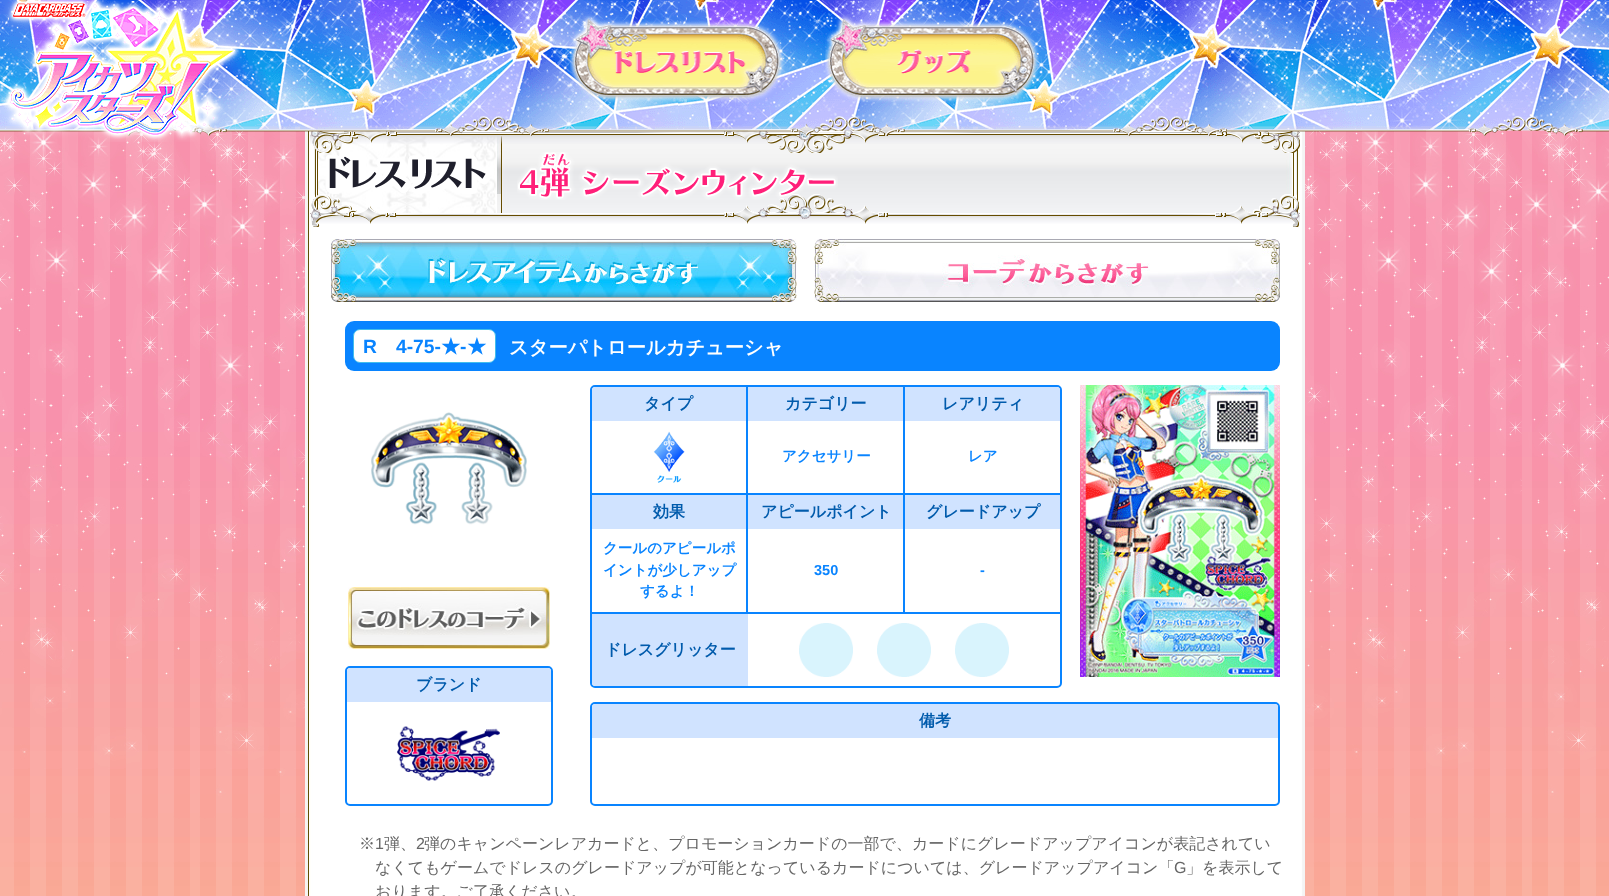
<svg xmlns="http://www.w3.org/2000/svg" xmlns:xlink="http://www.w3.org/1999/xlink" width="1609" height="896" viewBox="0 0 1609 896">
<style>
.cls-1{font:bold 19.25px Liberation Sans;fill:#0984ff}
.cls-2{font:bold 19.25px WenQuanYi Zen Hei;fill:#0984ff}
.cls-3{font:bold 19.25px WenQuanYi Zen Hei;fill:#ffffff}
.cls-4{font:bold 16px WenQuanYi Zen Hei;fill:#005bac}
.cls-5{font:bold 14.5px WenQuanYi Zen Hei;fill:#0984ff}
.cls-6{font:bold 14.5px Liberation Sans;fill:#0984ff}
.cls-7{font:500 16px WenQuanYi Zen Hei;fill:#666666}
.cls-8{font:16px Liberation Sans;fill:#666666}
</style>
<rect width="100%" height="100%" fill="#ffffff"/>
<image xlink:href="image0.png" x="0" y="0" width="1609" height="896"/>
<image xlink:href="image5.png" x="305" y="0" width="1000" height="896"/>
<image xlink:href="image7.png" x="314" y="132" width="986" height="83"/>
<image xlink:href="image10.png" x="310" y="194" width="990" height="33"/>
<image xlink:href="image9.png" x="517" y="152" width="321" height="48"/>
<image xlink:href="image6.png" x="310" y="127" width="990" height="26"/>
<image xlink:href="image1.png" x="0" y="0" width="1609" height="136"/>
<image xlink:href="image2.png" x="0" y="0" width="242" height="142"/>
<image xlink:href="image3.png" x="570" y="14" width="215" height="89"/>
<image xlink:href="image4.png" x="825" y="14" width="215" height="89"/>
<image xlink:href="image8.png" x="325" y="155" width="165" height="39"/>
<image xlink:href="image11.png" x="331" y="239" width="466" height="63"/>
<image xlink:href="image12.png" x="814" y="239" width="466" height="63"/>
<rect fill="#0984ff" x="345" y="321" width="935" height="50" rx="9"/>
<rect fill="#ffffff" stroke="#41bdec" x="353.5" y="329.5" width="142" height="33" rx="6.5"/>
<image xlink:href="image13.png" x="371" y="412" width="156" height="113"/>
<image xlink:href="image14.png" x="348" y="587" width="202" height="62"/>
<rect fill="none" stroke="#0984ff" stroke-width="2" x="346" y="667" width="206" height="138" rx="4"/>
<path fill="#d0e3ff" d="M350 668H548C549.5 668 551 669.5 551 671V702H347V671C347 669.5 348.5 668 350 668Z"/>
<image xlink:href="image15.png" x="397" y="726" width="103" height="55"/>
<rect fill="none" stroke="#0984ff" stroke-width="2" x="591" y="386" width="470" height="301" rx="4"/>
<path fill="#d0e3ff" d="M595 387H748V421H592V390C592 388.5 593.5 387 595 387Z"/>
<rect fill="#0984ff" x="746" y="387" width="2" height="227"/>
<rect fill="#d0e3ff" x="748" y="387" width="155" height="34"/>
<rect fill="#0984ff" x="903" y="387" width="2" height="227"/>
<path fill="#d0e3ff" d="M905 387H1057C1058.5 387 1060 388.5 1060 390V421H905Z"/>
<rect fill="#0984ff" x="592" y="493" width="468" height="2"/>
<image xlink:href="image16.png" x="653" y="431" width="32" height="52"/>
<rect fill="#d0e3ff" x="592" y="495" width="154" height="34"/>
<rect fill="#d0e3ff" x="748" y="495" width="155" height="34"/>
<rect fill="#d0e3ff" x="905" y="495" width="155" height="34"/>
<rect fill="#0984ff" x="592" y="612" width="468" height="2"/>
<path fill="#d0e3ff" d="M592 614H748V686H595C593.5 686 592 684.5 592 683Z"/>
<image xlink:href="image17.png" x="799" y="623" width="54" height="54"/>
<image xlink:href="image18.png" x="877" y="623" width="54" height="54"/>
<image xlink:href="image18.png" x="955" y="623" width="54" height="54"/>
<image xlink:href="image19.png" x="1080" y="385" width="200" height="292"/>
<rect fill="none" stroke="#0984ff" stroke-width="2" x="591" y="703" width="688" height="102" rx="4"/>
<path fill="#d0e3ff" d="M595 704H1275C1276.5 704 1278 705.5 1278 707V738H592V707C592 705.5 593.5 704 595 704Z"/>
<text class="cls-1" x="363" y="353">R</text>
<text class="cls-1" x="396" y="353">4-75-</text>
<text class="cls-2" x="441" y="353">★</text>
<text class="cls-1" x="460" y="353">-</text>
<text class="cls-2" x="467" y="353">★</text>
<text class="cls-3" x="509" y="354">スターパトロールカチューシャ</text>
<text class="cls-4" x="416" y="690">ブランド</text>
<text class="cls-4" x="644" y="409">タイプ</text>
<text class="cls-4" x="785" y="409">カテゴリー</text>
<text class="cls-4" x="942" y="409">レアリティ</text>
<text class="cls-5" x="782" y="461">アクセサリー</text>
<text class="cls-5" x="968" y="461">レア</text>
<text class="cls-4" x="653" y="517">効果</text>
<text class="cls-4" x="761" y="517">アピールポイント</text>
<text class="cls-4" x="926" y="517">グレードアップ</text>
<text class="cls-5"><tspan x="603" y="553">クールのアピールポ</tspan><tspan x="603" y="575">イントが少しアップ</tspan></text>
<text class="cls-5" x="640" y="596">するよ！</text>
<text class="cls-6" x="814" y="575">350</text>
<text class="cls-6" x="980" y="575">-</text>
<text class="cls-4" x="605" y="655">ドレスグリッター</text>
<text class="cls-4" x="919" y="726">備考</text>
<text class="cls-7" x="359" y="849">※</text>
<text class="cls-8" x="375" y="849">1</text>
<text class="cls-7" x="384" y="849">弾、</text>
<text class="cls-8" x="416" y="849">2</text>
<text class="cls-7" x="424" y="849">弾のキャンペーンレアカードと、プロモーションカードの一部で、カードにグレードアップアイコンが表記されてい</text>
<text class="cls-7" x="375" y="873">なくてもゲームでドレスのグレードアップが可能となっているカードについては、グレードアップアイコン「</text>
<text class="cls-8" x="1174" y="873">G</text>
<text class="cls-7" x="1186" y="873">」を表示して</text>
<text class="cls-7" x="375" y="897">おります。ご了承ください。</text>
</svg>
